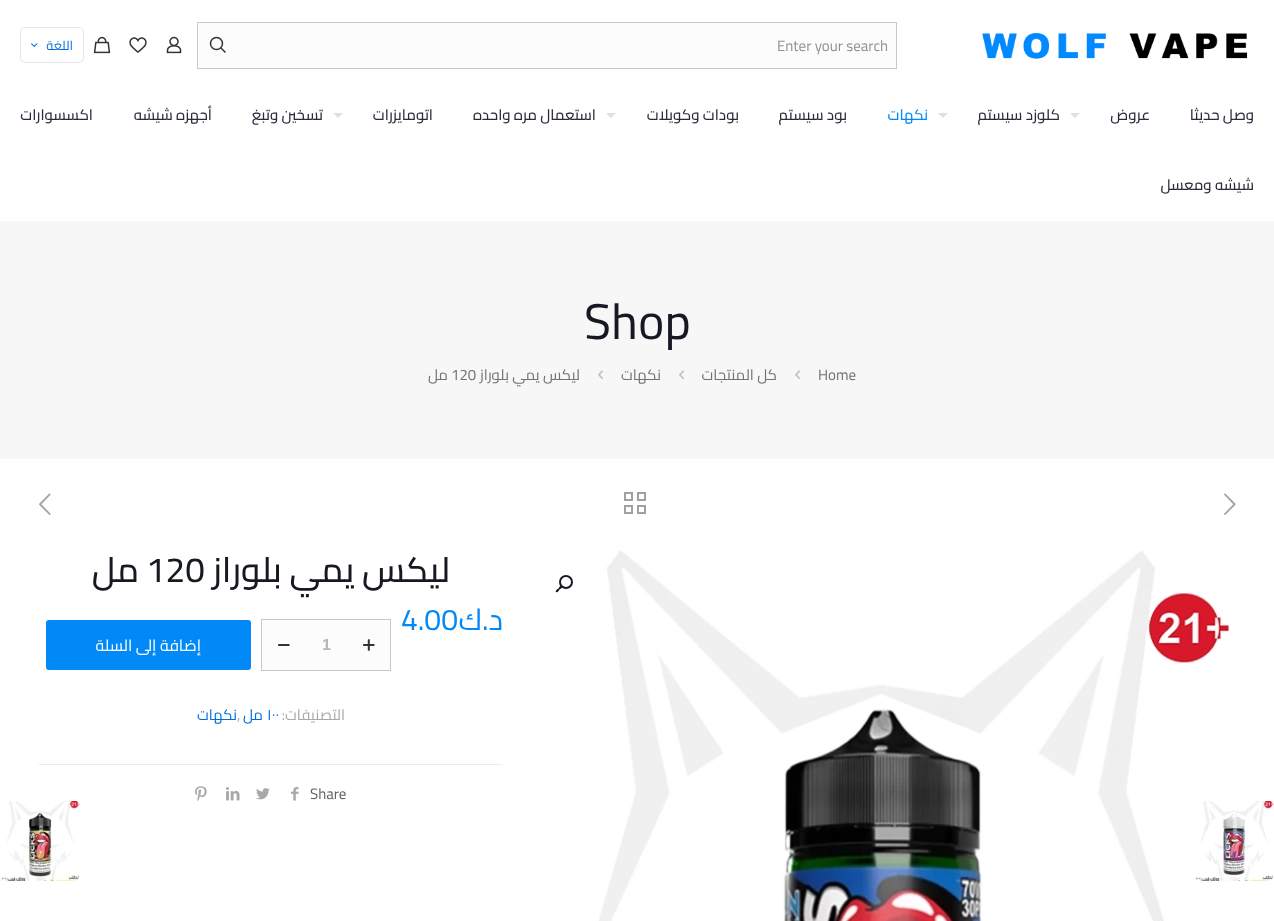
<svg xmlns="http://www.w3.org/2000/svg" xmlns:xlink="http://www.w3.org/1999/xlink" width="1274" height="921" viewBox="0 0 1274 921">
<style>
.cls-1{font:15px Cairo;fill:#929292}
.cls-2{font:13px Cairo;direction:rtl;fill:#006edf}
.cls-3{font:500 15px Cairo;direction:rtl;fill:#2a2b39}
.cls-4{font:500 15px Cairo;direction:rtl;fill:#0089f7}
.cls-5{font:50px Cairo;fill:#161922}
.cls-6{font:15px Cairo;fill:#707277}
.cls-7{font:15px Cairo;direction:rtl;fill:#707277}
.cls-8{font:500 35px Cairo;direction:rtl;fill:#161922}
.cls-9{font:500 35px Cairo;fill:#161922}
.cls-10{font:30px Cairo;direction:rtl;fill:#0089f7}
.cls-11{font:30px Cairo;fill:#0089f7}
.cls-12{font:bold 16px Liberation Sans;fill:#b5b5b6}
.cls-13{font:16px Cairo;direction:rtl;fill:#ffffff}
.cls-14{font:15px Cairo;direction:rtl;fill:#a8a8a8}
.cls-15{font:15px Cairo;fill:#006edf}
.cls-16{font:15px Cairo;direction:rtl;fill:#006edf}
.cls-17{font:15px Cairo;fill:#a8a8a8}
.cls-18{font:15px Cairo;fill:#626262}
</style>
<rect width="100%" height="100%" fill="#ffffff"/>
<rect fill="#f7f7f7" x="0" y="221" width="1274" height="238"/>
<image xlink:href="image0.png" x="982" y="32" width="266" height="27"/>
<rect fill="#fcfcfc" stroke="#c8c8c8" x="197.5" y="22.5" width="699" height="46"/>
<circle fill="none" stroke="#333333" stroke-width="1.5" cx="216.5" cy="43.5" r="6"/>
<path fill="none" stroke="#333333" stroke-width="1.5" d="M220.5 47.5L225.5 52.5"/>
<image xlink:href="image1.png" x="166" y="36" width="16" height="18"/>
<image xlink:href="image2.png" x="129" y="37" width="18" height="16"/>
<image xlink:href="image3.png" x="93" y="36" width="18" height="18"/>
<rect fill="none" stroke="#e6e6e6" x="20.5" y="27.5" width="63" height="35" rx="4.5"/>
<image xlink:href="image4.png" x="31" y="43" width="7" height="4"/>
<path fill="#e0e0e0" d="M1070 113H1080L1075 118Z"/>
<path fill="#e0e0e0" d="M938 113H948L943 118Z"/>
<path fill="#e0e0e0" d="M606 113H616L611 118Z"/>
<path fill="#e0e0e0" d="M333 113H343L338 118Z"/>
<image xlink:href="image5.png" x="795" y="370" width="5" height="9"/>
<image xlink:href="image5.png" x="679" y="370" width="5" height="9"/>
<image xlink:href="image5.png" x="598" y="370" width="5" height="9"/>
<image xlink:href="image6.png" x="1224" y="493" width="12" height="22"/>
<image xlink:href="image7.png" x="624" y="492" width="22" height="22"/>
<image xlink:href="image8.png" x="39" y="493" width="12" height="22"/>
<image xlink:href="image9.png" x="598" y="549" width="632" height="372"/>
<circle fill="none" stroke="#161922" stroke-width="2" cx="566" cy="582" r="6"/>
<path fill="#161922" d="M562 586C563 587.5 560.5 589 559.5 589.5C559 590.5 557.5 593 556 592C555 590.5 557.5 589 558.5 588.5C559 587.5 560.5 585 562 586Z"/>
<rect fill="#fcfcfc" stroke="#c8c8c8" x="261.5" y="619.5" width="129" height="51"/>
<image xlink:href="image10.png" x="363" y="639" width="12" height="12"/>
<image xlink:href="image11.png" x="278" y="644" width="12" height="2"/>
<rect fill="#0089f7" x="46" y="620" width="205" height="50" rx="3"/>
<rect fill="#ebebeb" x="39" y="764" width="464" height="1"/>
<image xlink:href="image12.png" x="291" y="787" width="8" height="14"/>
<image xlink:href="image13.png" x="256" y="788" width="14" height="12"/>
<image xlink:href="image14.png" x="226" y="787" width="14" height="14"/>
<image xlink:href="image15.png" x="195" y="786" width="12" height="15"/>
<image xlink:href="image16.png" x="1194" y="801" width="80" height="80"/>
<image xlink:href="image17.png" x="0" y="801" width="80" height="80"/>
<text class="cls-1" x="777" y="51">Enter your search</text>
<text class="cls-2" x="73" y="50">اللغة</text>
<text class="cls-3" x="1254" y="120">وصل حديثا</text>
<text class="cls-3" x="1150" y="120">عروض</text>
<text class="cls-3" x="1060" y="120">كلوزد سيستم</text>
<text class="cls-4" x="928" y="120">نكهات</text>
<text class="cls-3" x="847" y="120">بود سيستم</text>
<text class="cls-3" x="739" y="120">بودات وكويلات</text>
<text class="cls-3" x="596" y="120">استعمال مره واحده</text>
<text class="cls-3" x="433" y="120">اتومايزرات</text>
<text class="cls-3" x="323" y="120">تسخين وتبغ</text>
<text class="cls-3" x="212" y="120">أجهزه شيشه</text>
<text class="cls-3" x="93" y="120">اكسسوارات</text>
<text class="cls-3" x="1254" y="190">شيشه ومعسل</text>
<text class="cls-5" x="584" y="339">Shop</text>
<text class="cls-6" x="818" y="380">Home</text>
<text class="cls-7" x="777" y="380">كل المنتجات</text>
<text class="cls-7" x="661" y="380">نكهات</text>
<text class="cls-7" x="580" y="380">ليكس يمي بلوراز</text>
<text class="cls-6" x="451" y="380">120</text>
<text class="cls-7" x="448" y="380">مل</text>
<text class="cls-8" x="450" y="582">ليكس يمي بلوراز</text>
<text class="cls-9" x="146" y="582">120</text>
<text class="cls-8" x="139" y="582">مل</text>
<text class="cls-10" x="503" y="630">د.ك</text>
<text class="cls-11" x="401" y="630">4.00</text>
<text class="cls-12" x="322" y="650">1</text>
<text class="cls-13" x="201" y="651">إضافة إلى السلة</text>
<text class="cls-14" x="345" y="720">التصنيفات:</text>
<text class="cls-15" x="267" y="720">١٠٠</text>
<text class="cls-16" x="263" y="720">مل</text>
<text class="cls-17" x="237" y="720">,</text>
<text class="cls-16" x="237" y="720">نكهات</text>
<text class="cls-18" x="310" y="799">Share</text>
</svg>
